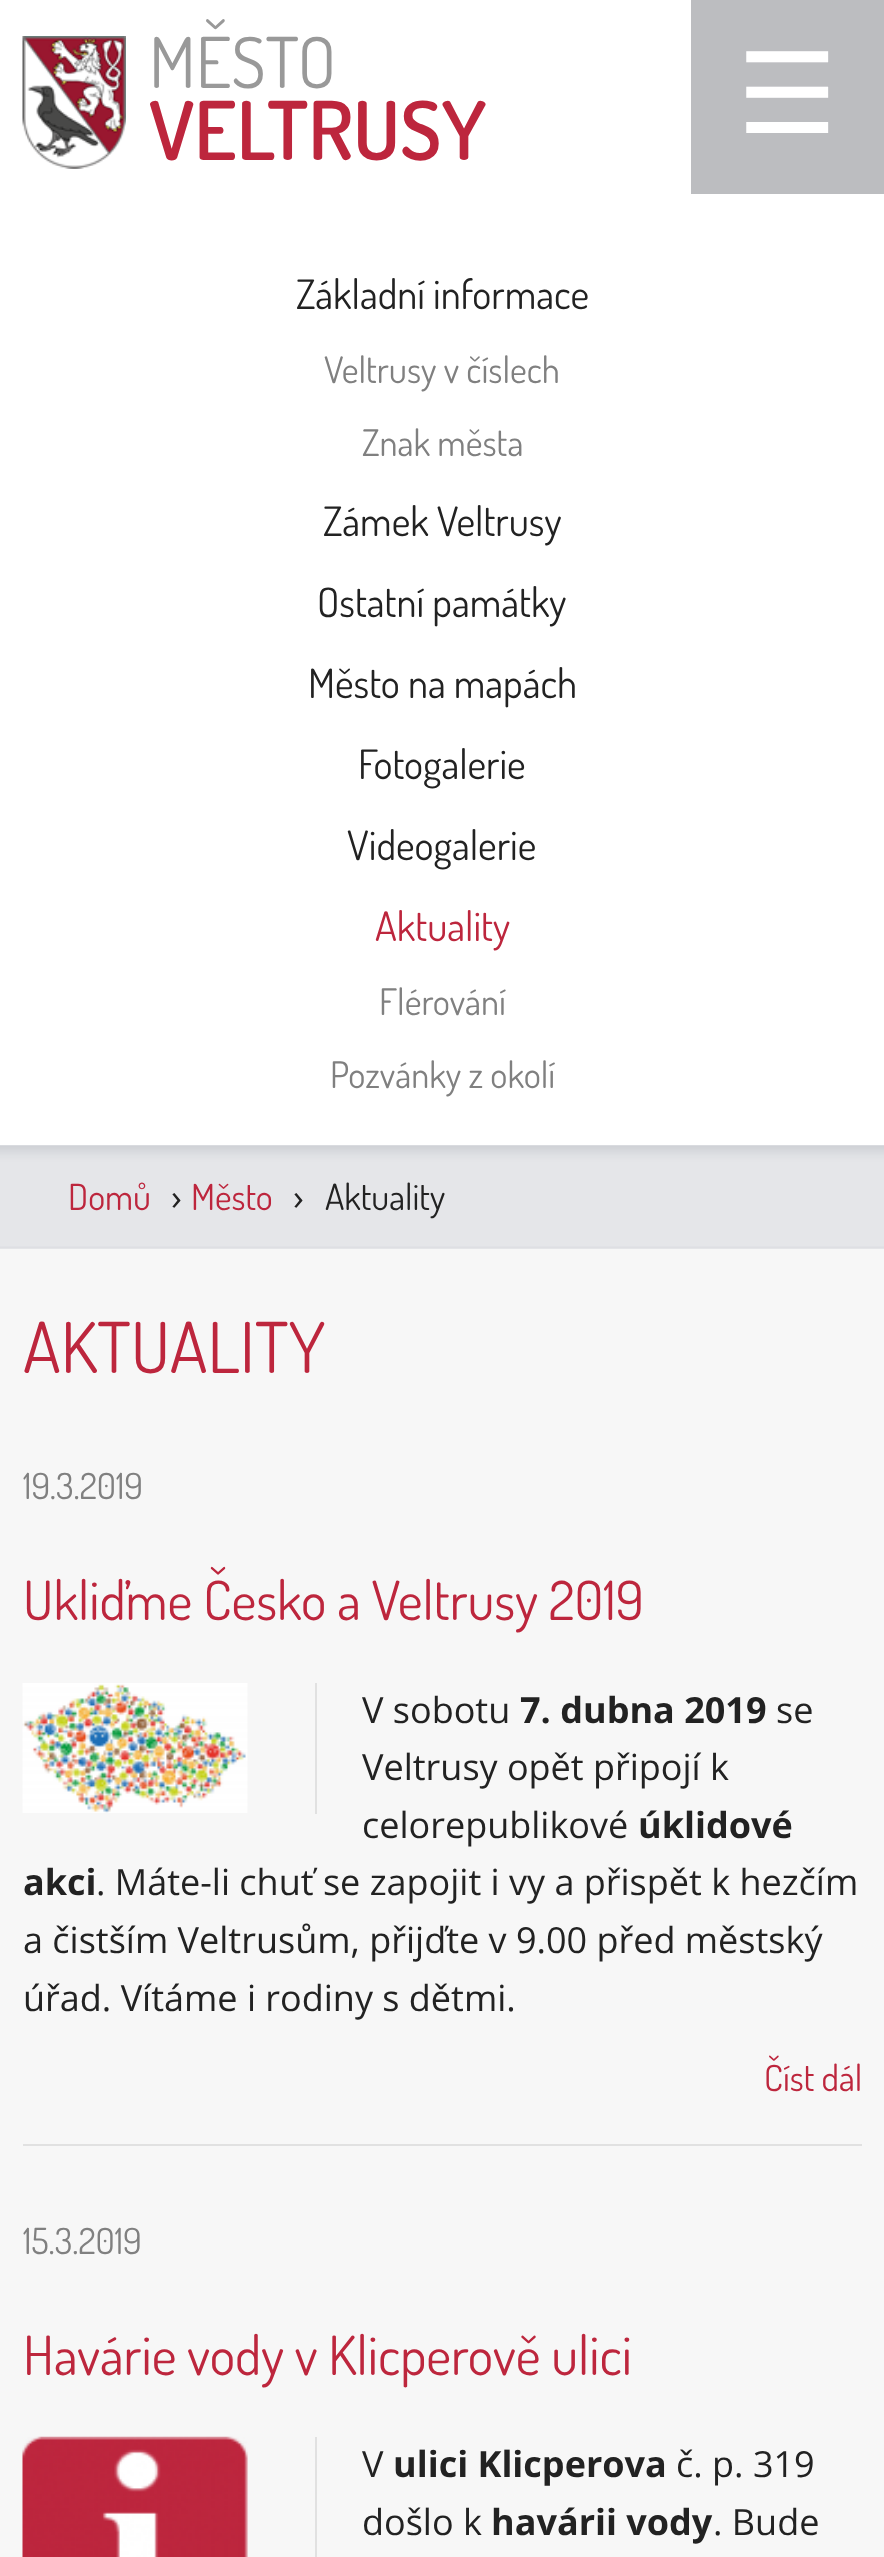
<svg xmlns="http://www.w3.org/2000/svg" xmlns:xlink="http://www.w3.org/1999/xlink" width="884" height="2557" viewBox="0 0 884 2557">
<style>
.cls-1{font:70px Dosis;fill:#999999}
.cls-2{font:600 81px Dosis;fill:#bd263d}
.cls-3{font:112px DejaVu Sans;fill:#ffffff}
.cls-4{font:40.5px Dosis;fill:#222222}
.cls-5{font:36.5px Dosis;fill:#808080}
.cls-6{font:40.5px Dosis;fill:#bd263d}
.cls-7{font:36px Dosis;fill:#bd263d}
.cls-8{font:36px Open Sans;fill:#222222}
.cls-9{font:36px Dosis;fill:#222222}
.cls-10{font:70px Dosis;fill:#bd263d}
.cls-11{font:36px Dosis;fill:#808080}
.cls-12{font:54px Dosis;fill:#bd263d}
.cls-13{font:bold 36px Open Sans;fill:#222222}
</style>
<rect width="100%" height="100%" fill="#ffffff"/>
<image xlink:href="image0.png" x="22" y="36" width="104" height="133"/>
<rect fill="#bcbdc0" x="691" y="0" width="193" height="194"/>
<rect fill="#f7f7f7" x="0" y="1145" width="884" height="1412"/>
<image xlink:href="image1.png" x="0" y="1145" width="884" height="104"/>
<rect fill="#e1e1e1" x="23" y="2144" width="839" height="2"/>
<rect fill="#e1e1e1" x="315" y="1683" width="2" height="131"/>
<image xlink:href="image2.png" x="22" y="1683" width="226" height="130"/>
<rect fill="#e1e1e1" x="315" y="2437" width="2" height="120"/>
<image xlink:href="image3.png" x="22" y="2436" width="226" height="121"/>
<text class="cls-1" x="149" y="88">MĚSTO</text>
<text class="cls-2" x="149" y="160">VELTRUSY</text>
<text class="cls-3" x="737" y="133">☰</text>
<text class="cls-4" x="296" y="309">Základní informace</text>
<text class="cls-5" x="324" y="383">Veltrusy v číslech</text>
<text class="cls-5" x="362" y="456">Znak města</text>
<text class="cls-4" x="323" y="536">Zámek Veltrusy</text>
<text class="cls-4" x="317" y="617">Ostatní památky</text>
<text class="cls-4" x="308" y="698">Město na mapách</text>
<text class="cls-4" x="358" y="779">Fotogalerie</text>
<text class="cls-4" x="347" y="860">Videogalerie</text>
<text class="cls-6" x="375" y="941">Aktuality</text>
<text class="cls-5" x="379" y="1015">Flérování</text>
<text class="cls-5" x="330" y="1088">Pozvánky z okolí</text>
<text class="cls-7" x="68" y="1210">Domů</text>
<text class="cls-8" x="171" y="1210">›</text>
<text class="cls-7" x="191" y="1210">Město</text>
<text class="cls-8" x="293" y="1210">›</text>
<text class="cls-9" x="325" y="1210">Aktuality</text>
<text class="cls-10" x="23" y="1373">AKTUALITY</text>
<text class="cls-11" x="23" y="1499">19.3.2019</text>
<text class="cls-12" x="23" y="1620">Ukliďme Česko a Veltrusy 2019</text>
<text class="cls-8" x="362" y="1723">V sobotu</text>
<text class="cls-13" x="520" y="1723">7. dubna 2019</text>
<text class="cls-8" x="776" y="1723">se</text>
<text class="cls-8"><tspan x="362" y="1780">Veltrusy opět připojí k</tspan><tspan x="362" y="1838">celorepublikové</tspan></text>
<text class="cls-13" x="638" y="1838">úklidové</text>
<text class="cls-13" x="23" y="1895">akci</text>
<text class="cls-8" x="96" y="1895">. Máte-li chuť se zapojit i vy a přispět k hezčím</text>
<text class="cls-8"><tspan x="23" y="1953">a čistším Veltrusům, přijďte v 9.00 před městský</tspan><tspan x="23" y="2011">úřad. Vítáme i rodiny s dětmi.</tspan></text>
<text class="cls-7" x="764" y="2091">Číst dál</text>
<text class="cls-11" x="23" y="2254">15.3.2019</text>
<text class="cls-12" x="23" y="2375">Havárie vody v Klicperově ulici</text>
<text class="cls-8" x="362" y="2477">V</text>
<text class="cls-13" x="393" y="2477">ulici Klicperova</text>
<text class="cls-8" x="676" y="2477">č. p. 319</text>
<text class="cls-8" x="362" y="2535">došlo k</text>
<text class="cls-13" x="491" y="2535">havárii vody</text>
<text class="cls-8" x="713" y="2535">. Bude</text>
</svg>
